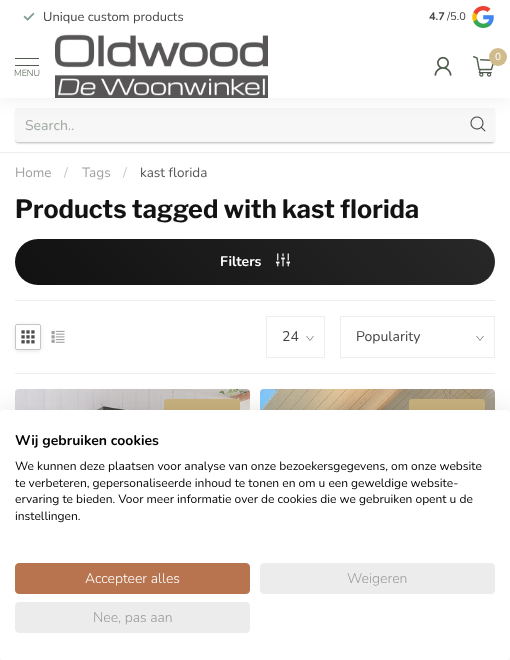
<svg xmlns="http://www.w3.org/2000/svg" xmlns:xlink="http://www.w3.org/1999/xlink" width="510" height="660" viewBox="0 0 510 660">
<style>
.cls-1{font:12.9px Nunito;fill:#444444}
.cls-2{font:bold 11px Nunito;fill:#444444}
.cls-3{font:11px Nunito;fill:#444444}
.cls-4{font:10px Nunito;fill:#ffffff}
.cls-5{font:300 9px Nunito;fill:#4f5c4d}
.cls-6{font:14px Nunito;fill:#a1a8a0}
.cls-7{font:13.5px Nunito;fill:#a2a2a2}
.cls-8{font:13.5px Nunito;fill:#c7c7c7}
.cls-9{font:13.5px Nunito;fill:#575757}
.cls-10{font:bold 25.25px Libre Franklin;fill:#131313}
.cls-11{font:bold 14px Nunito;fill:#ffffff}
.cls-12{font:14px Nunito;fill:#444444}
.cls-13{font:bold 14px Nunito;fill:#000000}
.cls-14{font:12px Nunito;fill:#000000}
.cls-15{font:300 14px Nunito;fill:#ffffff}
.cls-16{font:300 14px Nunito;fill:#9b9b9b}
</style>
<defs>
<linearGradient id="g1" gradientUnits="userSpaceOnUse" x1="124" y1="394" x2="387" y2="131"><stop offset="0" stop-color="#111111"/><stop offset="1" stop-color="#282828"/></linearGradient>
<clipPath id="clip1"><path d="M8 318H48V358H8ZM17 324H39C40 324 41 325 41 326V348C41 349 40 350 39 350H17C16 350 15 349 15 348V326C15 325 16 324 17 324Z" clip-rule="evenodd"/></clipPath>
</defs>
<rect width="100%" height="100%" fill="#ffffff"/>
<rect fill="#9b9b9b" fill-opacity="0.75" filter="blur(1px)" x="16" y="111" width="478" height="32" rx="2"/>
<rect fill="#ffffff" x="15" y="108" width="480" height="34" rx="3"/>
<rect fill="#4f5c4d" fill-opacity="0.05" x="15" y="108" width="480" height="34"/>
<image xlink:href="image5.png" x="470" y="116" width="16" height="16"/>
<rect fill="#000000" fill-opacity="0.07" filter="blur(10px)" x="0" y="0" width="510" height="98"/>
<rect fill="#ffffff" x="0" y="0" width="510" height="98"/>
<image xlink:href="image0.png" x="23" y="12" width="12" height="9"/>
<image xlink:href="image1.png" x="472" y="6" width="22" height="22"/>
<image xlink:href="image2.png" x="434" y="56" width="18" height="20"/>
<image xlink:href="image3.png" x="473" y="56" width="21" height="21"/>
<circle fill="#d0bb8c" cx="498" cy="57" r="9"/>
<rect fill="#4f5c4d" x="15" y="58" width="24" height="1"/>
<rect fill="#4f5c4d" x="15" y="65" width="24" height="1"/>
<image xlink:href="image4.png" x="55" y="34" width="213" height="64"/>
<rect fill="#eeeeee" x="0" y="152" width="510" height="1"/>
<rect fill="url(#g1)" x="15" y="239" width="480" height="46" rx="23"/>
<image xlink:href="image6.png" x="276" y="253" width="14" height="14"/>
<rect fill="#eeeeee" x="15" y="300" width="480" height="1"/>
<rect fill="#eeeeee" x="15" y="373" width="480" height="1"/>
<g clip-path="url(#clip1)">
<rect fill="#000000" fill-opacity="0.1" filter="blur(2px)" x="15" y="325" width="26" height="26" rx="2"/>
</g>
<rect fill="none" stroke="#c6c6c6" x="15.5" y="324.5" width="25" height="25" rx="1.5"/>
<image xlink:href="image7.png" x="21" y="330" width="14" height="14"/>
<image xlink:href="image8.png" x="51" y="330" width="14" height="13"/>
<path fill="none" stroke="#595959" stroke-width="0.7" d="M313.5 336L310 340.5L306.5 336"/>
<rect fill="none" stroke="#eeeeee" x="266.5" y="316.5" width="58" height="41"/>
<path fill="none" stroke="#595959" stroke-width="0.7" d="M483.5 336L480 340.5L476.5 336"/>
<rect fill="none" stroke="#eeeeee" x="340.5" y="316.5" width="154" height="41"/>
<image xlink:href="image9.png" x="15" y="389" width="235" height="21"/>
<rect fill="#c9b27f" x="164" y="399" width="76" height="24" rx="3"/>
<image xlink:href="image10.png" x="260" y="389" width="235" height="21"/>
<rect fill="#c9b27f" x="409" y="399" width="76" height="24" rx="3"/>
<rect fill="#000000" fill-opacity="0.1" filter="blur(12px)" x="0" y="410" width="510" height="250" rx="4"/>
<rect fill="#ffffff" x="0" y="410" width="510" height="250" rx="4"/>
<rect fill="#b8744e" stroke="#b8744e" x="15.5" y="563.5" width="234" height="30" rx="3.5"/>
<rect fill="#ececec" stroke="#ececec" x="260.5" y="563.5" width="234" height="30" rx="3.5"/>
<rect fill="#ececec" stroke="#ececec" x="15.5" y="602.5" width="234" height="30" rx="3.5"/>
<text class="cls-1" x="43" y="21">Unique custom products</text>
<text class="cls-2" x="429" y="20">4.7</text>
<text class="cls-3" x="447" y="20">/5.0</text>
<text class="cls-4" x="495" y="60">0</text>
<text class="cls-5" x="14" y="76">MENU</text>
<text class="cls-6" x="25" y="130">Search..</text>
<text class="cls-7" x="15" y="177">Home</text>
<text class="cls-8" x="64" y="177">/</text>
<text class="cls-7" x="82" y="177">Tags</text>
<text class="cls-8" x="123" y="177">/</text>
<text class="cls-9" x="140" y="177">kast florida</text>
<text class="cls-10" x="15" y="218">Products tagged with kast florida</text>
<text class="cls-11" x="220" y="266">Filters</text>
<text class="cls-12" x="282" y="341">24</text>
<text class="cls-12" x="356" y="341">Popularity</text>
<text class="cls-13" x="15" y="445">Wij gebruiken cookies</text>
<text class="cls-14"><tspan x="15" y="470">We kunnen deze plaatsen voor analyse van onze bezoekersgegevens, om onze website</tspan><tspan x="15" y="487">te verbeteren, gepersonaliseerde inhoud te tonen en om u een geweldige website-</tspan><tspan x="15" y="503">ervaring te bieden. Voor meer informatie over de cookies die we gebruiken opent u de</tspan><tspan x="15" y="520">instellingen.</tspan></text>
<text class="cls-15" x="85" y="583">Accepteer alles</text>
<text class="cls-16" x="347" y="583">Weigeren</text>
<text class="cls-16" x="93" y="622">Nee, pas aan</text>
</svg>
